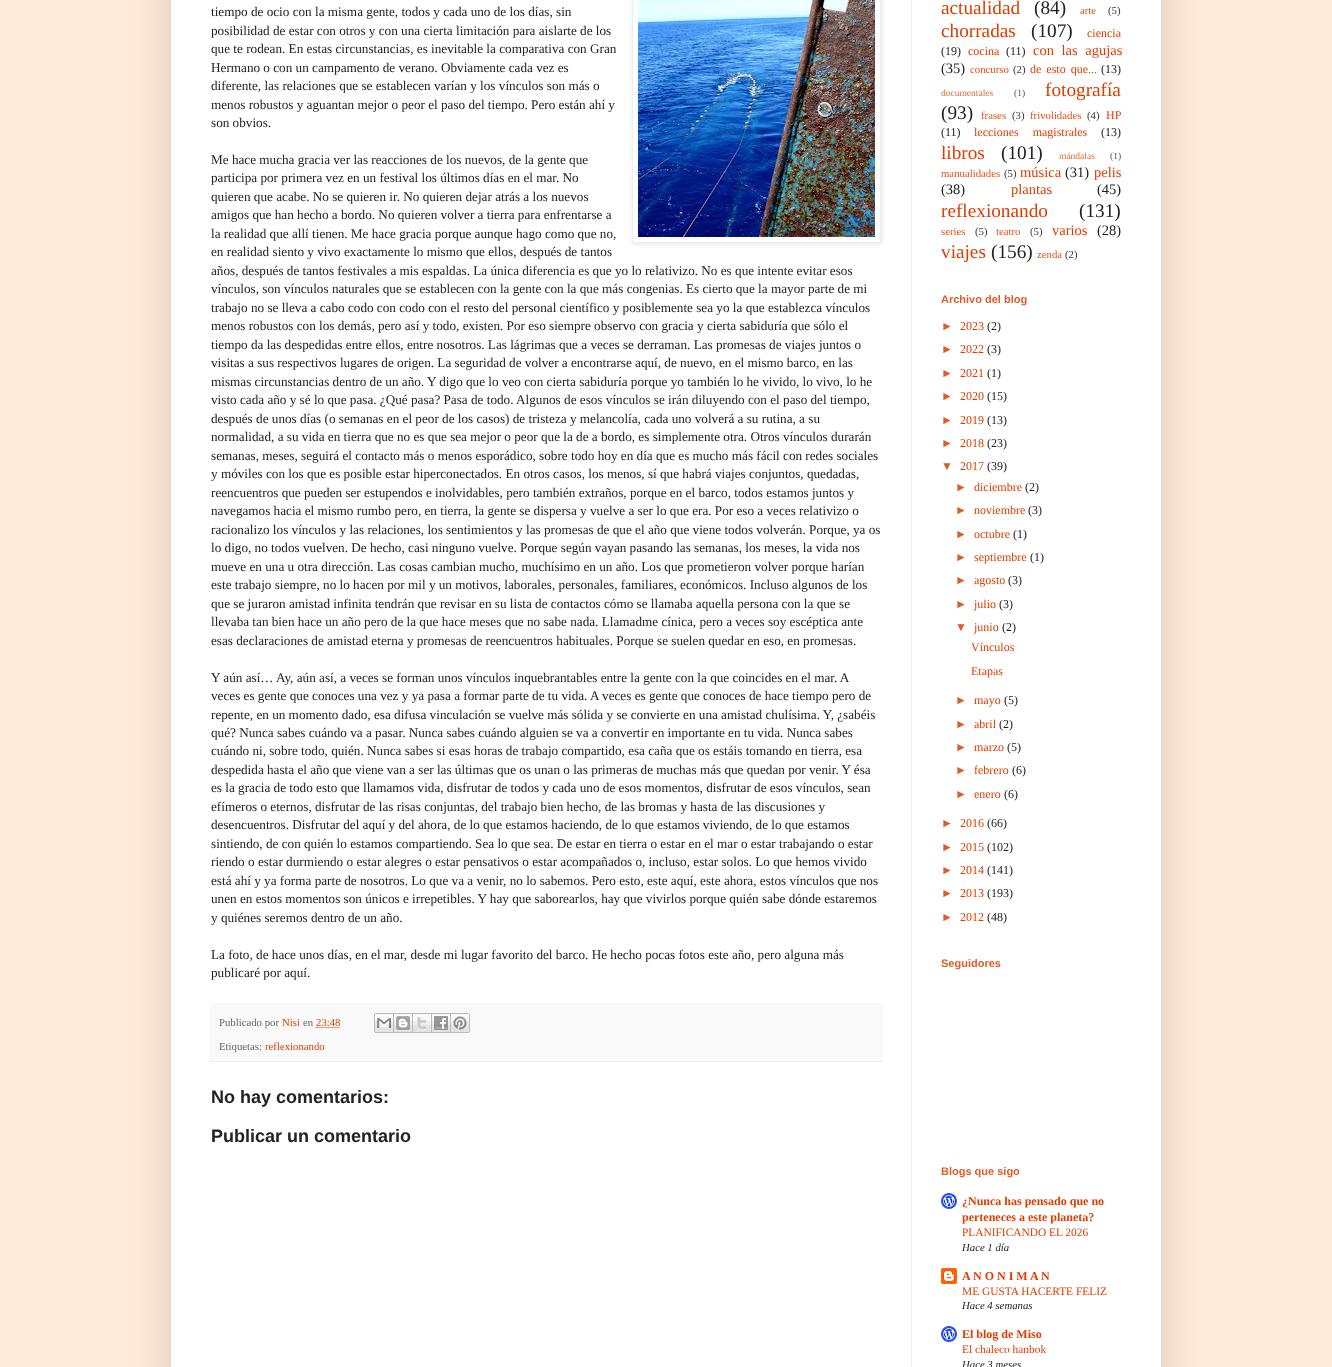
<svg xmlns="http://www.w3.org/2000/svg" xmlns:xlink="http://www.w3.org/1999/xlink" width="1332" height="1367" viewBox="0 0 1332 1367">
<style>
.cls-1{font:13.2px Liberation Serif;fill:#222222}
.cls-2{font:10.75px Liberation Serif;fill:#666666}
.cls-3{font:10.75px Liberation Serif;fill:#dd3d00}
.cls-4{font:bold 18px Liberation Sans;fill:#222222}
.cls-5{font:19.25px Liberation Serif;fill:#dd3d00}
.cls-6{font:19.25px Liberation Serif;fill:#222222}
.cls-7{font:10.75px Liberation Serif;fill:#e0501a}
.cls-8{font:10.75px Liberation Serif;fill:#383838}
.cls-9{font:12px Liberation Serif;fill:#dd3d00}
.cls-10{font:12px Liberation Serif;fill:#222222}
.cls-11{font:14.5px Liberation Serif;fill:#dd3d00}
.cls-12{font:14.5px Liberation Serif;fill:#222222}
.cls-13{font:9.5px Liberation Serif;fill:#e46433}
.cls-14{font:9.5px Liberation Serif;fill:#4e4e4e}
.cls-15{font:bold 11px Liberation Sans;fill:#dd5c2a}
.cls-16{font:12px Liberation Sans;fill:#dd5c2a}
.cls-17{font:bold 12px Liberation Serif;fill:#dd3d00}
.cls-18{font:11.4px Liberation Serif;fill:#dd3d00}
.cls-19{font:italic 10.75px Liberation Serif;fill:#222222}
</style>
<defs>
<clipPath id="clip1"><path d="M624 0H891V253H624ZM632-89H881V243H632Z" clip-rule="evenodd"/></clipPath>
</defs>
<rect width="100%" height="100%" fill="#feead9"/>
<rect fill="#000000" fill-opacity="0.15" filter="blur(20px)" x="171" y="-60" width="990" height="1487"/>
<rect fill="#ffffff" x="171" y="0" width="990" height="1367"/>
<g clip-path="url(#clip1)">
<rect fill="#000000" fill-opacity="0.1" filter="blur(2.5px)" x="633" y="-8" width="249" height="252"/>
</g>
<rect fill="none" stroke="#eeeeee" x="632.5" y="-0.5" width="248" height="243"/>
<image xlink:href="image0.png" x="638" y="0" width="237" height="237"/>
<rect fill="#f9f9f9" x="209" y="1003" width="674" height="58"/>
<rect fill="#eeeeee" x="209" y="1061" width="674" height="1"/>
<path fill="none" stroke="#dd3d00" stroke-dasharray="1 1" d="M315.5 1027.5H340"/>
<image xlink:href="image1.png" x="374" y="1013" width="20" height="20"/>
<image xlink:href="image2.png" x="394" y="1013" width="19" height="20"/>
<image xlink:href="image3.png" x="413" y="1013" width="19" height="20"/>
<image xlink:href="image4.png" x="432" y="1013" width="19" height="20"/>
<image xlink:href="image5.png" x="451" y="1013" width="19" height="20"/>
<image xlink:href="image6.png" x="941" y="1193" width="16" height="16"/>
<image xlink:href="image7.png" x="941" y="1268" width="16" height="16"/>
<image xlink:href="image6.png" x="941" y="1326" width="16" height="16"/>
<rect fill="#eeeeee" x="911" y="0" width="1" height="1367"/>
<text class="cls-1"><tspan x="211" y="16">tiempo de ocio con la misma gente, todos y cada uno de los días, sin</tspan><tspan x="211" y="35">posibilidad de estar con otros y con una cierta limitación para aislarte de los</tspan><tspan x="211" y="53">que te rodean. En estas circunstancias, es inevitable la comparativa con Gran</tspan><tspan x="211" y="72">Hermano o con un campamento de verano. Obviamente cada vez es</tspan><tspan x="211" y="90">diferente, las relaciones que se establecen varían y los vínculos son más o</tspan><tspan x="211" y="109">menos robustos y aguantan mejor o peor el paso del tiempo. Pero están ahí y</tspan><tspan x="211" y="127">son obvios.</tspan></text>
<text class="cls-1"><tspan x="211" y="164">Me hace mucha gracia ver las reacciones de los nuevos, de la gente que</tspan><tspan x="211" y="182">participa por primera vez en un festival los últimos días en el mar. No</tspan><tspan x="211" y="201">quieren que acabe. No se quieren ir. No quieren dejar atrás a los nuevos</tspan><tspan x="211" y="219">amigos que han hecho a bordo. No quieren volver a tierra para enfrentarse a</tspan><tspan x="211" y="238">la realidad que allí tienen. Me hace gracia porque aunque hago como que no,</tspan><tspan x="211" y="256">en realidad siento y vivo exactamente lo mismo que ellos, después de tantos</tspan><tspan x="211" y="275">años, después de tantos festivales a mis espaldas. La única diferencia es que yo lo relativizo. No es que intente evitar esos</tspan><tspan x="211" y="293">vínculos, son vínculos naturales que se establecen con la gente con la que más congenias. Es cierto que la mayor parte de mi</tspan><tspan x="211" y="312">trabajo no se lleva a cabo codo con codo con el resto del personal científico y posiblemente sea yo la que establezca vínculos</tspan><tspan x="211" y="330">menos robustos con los demás, pero así y todo, existen. Por eso siempre observo con gracia y cierta sabiduría que sólo el</tspan><tspan x="211" y="349">tiempo da las despedidas entre ellos, entre nosotros. Las lágrimas que a veces se derraman. Las promesas de viajes juntos o</tspan><tspan x="211" y="367">visitas a sus respectivos lugares de origen. La seguridad de volver a encontrarse aquí, de nuevo, en el mismo barco, en las</tspan><tspan x="211" y="386">mismas circunstancias dentro de un año. Y digo que lo veo con cierta sabiduría porque yo también lo he vivido, lo vivo, lo he</tspan><tspan x="211" y="404">visto cada año y sé lo que pasa. ¿Qué pasa? Pasa de todo. Algunos de esos vínculos se irán diluyendo con el paso del tiempo,</tspan><tspan x="211" y="423">después de unos días (o semanas en el peor de los casos) de tristeza y melancolía, cada uno volverá a su rutina, a su</tspan><tspan x="211" y="441">normalidad, a su vida en tierra que no es que sea mejor o peor que la de a bordo, es simplemente otra. Otros vínculos durarán</tspan><tspan x="211" y="460">semanas, meses, seguirá el contacto más o menos esporádico, sobre todo hoy en día que es mucho más fácil con redes sociales</tspan><tspan x="211" y="478">y móviles con los que es posible estar hiperconectados. En otros casos, los menos, sí que habrá viajes conjuntos, quedadas,</tspan><tspan x="211" y="497">reencuentros que pueden ser estupendos e inolvidables, pero también extraños, porque en el barco, todos estamos juntos y</tspan><tspan x="211" y="515">navegamos hacia el mismo rumbo pero, en tierra, la gente se dispersa y vuelve a ser lo que era. Por eso a veces relativizo o</tspan><tspan x="211" y="534">racionalizo los vínculos y las relaciones, los sentimientos y las promesas de que el año que viene todos volverán. Porque, ya os</tspan><tspan x="211" y="552">lo digo, no todos vuelven. De hecho, casi ninguno vuelve. Porque según vayan pasando las semanas, los meses, la vida nos</tspan><tspan x="211" y="571">mueve en una u otra dirección. Las cosas cambian mucho, muchísimo en un año. Los que prometieron volver porque harían</tspan><tspan x="211" y="589">este trabajo siempre, no lo hacen por mil y un motivos, laborales, personales, familiares, económicos. Incluso algunos de los</tspan><tspan x="211" y="608">que se juraron amistad infinita tendrán que revisar en su lista de contactos cómo se llamaba aquella persona con la que se</tspan><tspan x="211" y="626">llevaba tan bien hace un año pero de la que hace meses que no sabe nada. Llamadme cínica, pero a veces soy escéptica ante</tspan><tspan x="211" y="645">esas declaraciones de amistad eterna y promesas de reencuentros habituales. Porque se suelen quedar en eso, en promesas.</tspan></text>
<text class="cls-1"><tspan x="211" y="682">Y aún así… Ay, aún así, a veces se forman unos vínculos inquebrantables entre la gente con la que coincides en el mar. A</tspan><tspan x="211" y="700">veces es gente que conoces una vez y ya pasa a formar parte de tu vida. A veces es gente que conoces de hace tiempo pero de</tspan><tspan x="211" y="719">repente, en un momento dado, esa difusa vinculación se vuelve más sólida y se convierte en una amistad chulísima. Y, ¿sabéis</tspan><tspan x="211" y="737">qué? Nunca sabes cuándo va a pasar. Nunca sabes cuándo alguien se va a convertir en importante en tu vida. Nunca sabes</tspan><tspan x="211" y="755">cuándo ni, sobre todo, quién. Nunca sabes si esas horas de trabajo compartido, esa caña que os estáis tomando en tierra, esa</tspan><tspan x="211" y="774">despedida hasta el año que viene van a ser las últimas que os unan o las primeras de muchas más que quedan por venir. Y ésa</tspan><tspan x="211" y="792">es la gracia de todo esto que llamamos vida, disfrutar de todos y cada uno de esos momentos, disfrutar de esos vínculos, sean</tspan><tspan x="211" y="811">efímeros o eternos, disfrutar de las risas conjuntas, del trabajo bien hecho, de las bromas y hasta de las discusiones y</tspan><tspan x="211" y="829">desencuentros. Disfrutar del aquí y del ahora, de lo que estamos haciendo, de lo que estamos viviendo, de lo que estamos</tspan><tspan x="211" y="848">sintiendo, de con quién lo estamos compartiendo. Sea lo que sea. De estar en tierra o estar en el mar o estar trabajando o estar</tspan><tspan x="211" y="866">riendo o estar durmiendo o estar alegres o estar pensativos o estar acompañados o, incluso, estar solos. Lo que hemos vivido</tspan><tspan x="211" y="885">está ahí y ya forma parte de nosotros. Lo que va a venir, no lo sabemos. Pero esto, este aquí, este ahora, estos vínculos que nos</tspan><tspan x="211" y="903">unen en estos momentos son únicos e irrepetibles. Y hay que saborearlos, hay que vivirlos porque quién sabe dónde estaremos</tspan><tspan x="211" y="922">y quiénes seremos dentro de un año.</tspan></text>
<text class="cls-1"><tspan x="211" y="959">La foto, de hace unos días, en el mar, desde mi lugar favorito del barco. He hecho pocas fotos este año, pero alguna más</tspan><tspan x="211" y="977">publicaré por aquí.</tspan></text>
<text class="cls-2" x="219" y="1026">Publicado por</text>
<text class="cls-3" x="282" y="1026">Nisi</text>
<text class="cls-2" x="303" y="1026">en</text>
<text class="cls-3" x="316" y="1026">23:48</text>
<text class="cls-2" x="219" y="1050">Etiquetas:</text>
<text class="cls-3" x="265" y="1050">reflexionando</text>
<text class="cls-4" x="211" y="1103">No hay comentarios:</text>
<text class="cls-4" x="211" y="1142">Publicar un comentario</text>
<text class="cls-5" x="941" y="14">actualidad</text>
<text class="cls-6" x="1034" y="14">(84)</text>
<text class="cls-7" x="1080" y="14">arte</text>
<text class="cls-8" x="1108" y="14">(5)</text>
<text class="cls-5" x="941" y="37">chorradas</text>
<text class="cls-6" x="1031" y="37">(107)</text>
<text class="cls-9" x="1087" y="37">ciencia</text>
<text class="cls-10" x="941" y="55">(19)</text>
<text class="cls-9" x="968" y="55">cocina</text>
<text class="cls-10" x="1006" y="55">(11)</text>
<text class="cls-11" x="1033" y="55" word-spacing="4">con las agujas</text>
<text class="cls-12" x="941" y="73">(35)</text>
<text class="cls-7" x="970" y="73">concurso</text>
<text class="cls-8" x="1013" y="73">(2)</text>
<text class="cls-9" x="1030" y="73" word-spacing="2">de esto que...</text>
<text class="cls-10" x="1101" y="73">(13)</text>
<text class="cls-13" x="941" y="96">documentales</text>
<text class="cls-14" x="1014" y="96">(1)</text>
<text class="cls-5" x="1045" y="96">fotografía</text>
<text class="cls-6" x="941" y="119">(93)</text>
<text class="cls-7" x="981" y="119">frases</text>
<text class="cls-8" x="1012" y="119">(3)</text>
<text class="cls-7" x="1030" y="119">frivolidades</text>
<text class="cls-8" x="1087" y="119">(4)</text>
<text class="cls-9" x="1106" y="119">HP</text>
<text class="cls-10" x="941" y="136">(11)</text>
<text class="cls-9" x="974" y="136" word-spacing="11">lecciones magistrales</text>
<text class="cls-10" x="1101" y="136">(13)</text>
<text class="cls-5" x="941" y="159">libros</text>
<text class="cls-6" x="1001" y="159">(101)</text>
<text class="cls-13" x="1059" y="159">mándalas</text>
<text class="cls-14" x="1110" y="159">(1)</text>
<text class="cls-7" x="941" y="177">manualidades</text>
<text class="cls-8" x="1004" y="177">(5)</text>
<text class="cls-11" x="1020" y="177">música</text>
<text class="cls-12" x="1065" y="177">(31)</text>
<text class="cls-11" x="1094" y="177">pelis</text>
<text class="cls-12" x="941" y="194">(38)</text>
<text class="cls-11" x="1011" y="194">plantas</text>
<text class="cls-12" x="1097" y="194">(45)</text>
<text class="cls-5" x="941" y="217">reflexionando</text>
<text class="cls-6" x="1079" y="217">(131)</text>
<text class="cls-7" x="941" y="235">series</text>
<text class="cls-8" x="975" y="235">(5)</text>
<text class="cls-7" x="996" y="235">teatro</text>
<text class="cls-8" x="1030" y="235">(5)</text>
<text class="cls-11" x="1052" y="235">varios</text>
<text class="cls-12" x="1097" y="235">(28)</text>
<text class="cls-5" x="941" y="258">viajes</text>
<text class="cls-6" x="991" y="258">(156)</text>
<text class="cls-7" x="1037" y="258">zenda</text>
<text class="cls-8" x="1065" y="258">(2)</text>
<text class="cls-15" x="941" y="303">Archivo del blog</text>
<text class="cls-16" x="941" y="330">►</text>
<text class="cls-9" x="960" y="330">2023</text>
<text class="cls-10" x="987" y="330">(2)</text>
<text class="cls-16" x="941" y="353">►</text>
<text class="cls-9" x="960" y="353">2022</text>
<text class="cls-10" x="987" y="353">(3)</text>
<text class="cls-16" x="941" y="377">►</text>
<text class="cls-9" x="960" y="377">2021</text>
<text class="cls-10" x="987" y="377">(1)</text>
<text class="cls-16" x="941" y="400">►</text>
<text class="cls-9" x="960" y="400">2020</text>
<text class="cls-10" x="987" y="400">(15)</text>
<text class="cls-16" x="941" y="424">►</text>
<text class="cls-9" x="960" y="424">2019</text>
<text class="cls-10" x="987" y="424">(13)</text>
<text class="cls-16" x="941" y="447">►</text>
<text class="cls-9" x="960" y="447">2018</text>
<text class="cls-10" x="987" y="447">(23)</text>
<text class="cls-16" x="941" y="470">▼</text>
<text class="cls-9" x="960" y="470">2017</text>
<text class="cls-10" x="987" y="470">(39)</text>
<text class="cls-16" x="955" y="491">►</text>
<text class="cls-9" x="974" y="491">diciembre</text>
<text class="cls-10" x="1025" y="491">(2)</text>
<text class="cls-16" x="955" y="514">►</text>
<text class="cls-9" x="974" y="514">noviembre</text>
<text class="cls-10" x="1028" y="514">(3)</text>
<text class="cls-16" x="955" y="538">►</text>
<text class="cls-9" x="974" y="538">octubre</text>
<text class="cls-10" x="1013" y="538">(1)</text>
<text class="cls-16" x="955" y="561">►</text>
<text class="cls-9" x="974" y="561">septiembre</text>
<text class="cls-10" x="1030" y="561">(1)</text>
<text class="cls-16" x="955" y="584">►</text>
<text class="cls-9" x="974" y="584">agosto</text>
<text class="cls-10" x="1008" y="584">(3)</text>
<text class="cls-16" x="955" y="608">►</text>
<text class="cls-9" x="974" y="608">julio</text>
<text class="cls-10" x="999" y="608">(3)</text>
<text class="cls-16" x="955" y="631">▼</text>
<text class="cls-9" x="974" y="631">junio</text>
<text class="cls-10" x="1002" y="631">(2)</text>
<text class="cls-9" x="971" y="651">Vínculos</text>
<text class="cls-9" x="971" y="675">Etapas</text>
<text class="cls-16" x="955" y="704">►</text>
<text class="cls-9" x="974" y="704">mayo</text>
<text class="cls-10" x="1004" y="704">(5)</text>
<text class="cls-16" x="955" y="728">►</text>
<text class="cls-9" x="974" y="728">abril</text>
<text class="cls-10" x="999" y="728">(2)</text>
<text class="cls-16" x="955" y="751">►</text>
<text class="cls-9" x="974" y="751">marzo</text>
<text class="cls-10" x="1007" y="751">(5)</text>
<text class="cls-16" x="955" y="774">►</text>
<text class="cls-9" x="974" y="774">febrero</text>
<text class="cls-10" x="1012" y="774">(6)</text>
<text class="cls-16" x="955" y="798">►</text>
<text class="cls-9" x="974" y="798">enero</text>
<text class="cls-10" x="1004" y="798">(6)</text>
<text class="cls-16" x="941" y="827">►</text>
<text class="cls-9" x="960" y="827">2016</text>
<text class="cls-10" x="987" y="827">(66)</text>
<text class="cls-16" x="941" y="851">►</text>
<text class="cls-9" x="960" y="851">2015</text>
<text class="cls-10" x="987" y="851">(102)</text>
<text class="cls-16" x="941" y="874">►</text>
<text class="cls-9" x="960" y="874">2014</text>
<text class="cls-10" x="987" y="874">(141)</text>
<text class="cls-16" x="941" y="897">►</text>
<text class="cls-9" x="960" y="897">2013</text>
<text class="cls-10" x="987" y="897">(193)</text>
<text class="cls-16" x="941" y="921">►</text>
<text class="cls-9" x="960" y="921">2012</text>
<text class="cls-10" x="987" y="921">(48)</text>
<text class="cls-15" x="941" y="967">Seguidores</text>
<text class="cls-15" x="941" y="1175">Blogs que sigo</text>
<text class="cls-17"><tspan x="962" y="1205">¿Nunca has pensado que no</tspan><tspan x="962" y="1221">perteneces a este planeta?</tspan></text>
<text class="cls-18" x="962" y="1236">PLANIFICANDO EL 2026</text>
<text class="cls-19" x="962" y="1251">Hace 1 día</text>
<text class="cls-17" x="962" y="1280">A N O N I M A N</text>
<text class="cls-18" x="962" y="1295">ME GUSTA HACERTE FELIZ</text>
<text class="cls-19" x="962" y="1309">Hace 4 semanas</text>
<text class="cls-17" x="962" y="1338">El blog de Miso</text>
<text class="cls-18" x="962" y="1353">El chaleco hanbok</text>
<text class="cls-19" x="962" y="1368">Hace 3 meses</text>
</svg>
